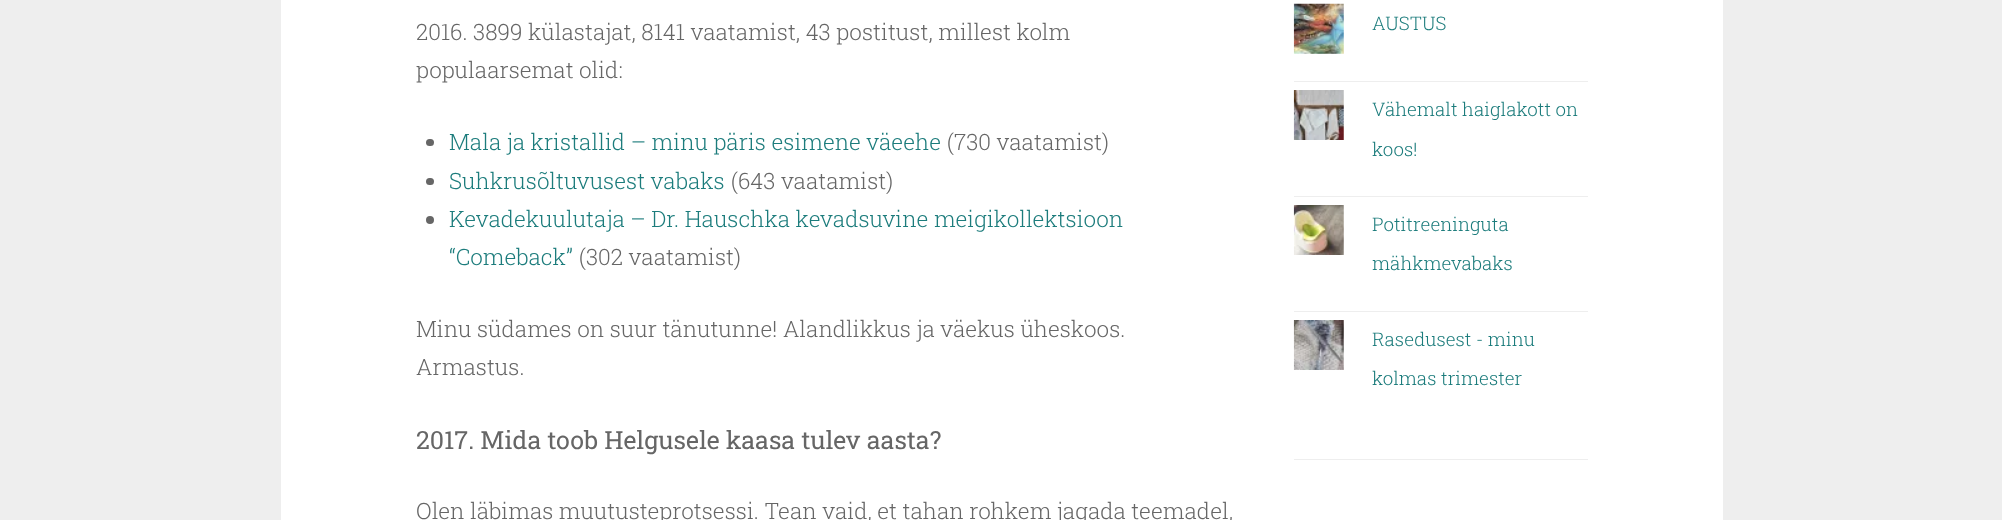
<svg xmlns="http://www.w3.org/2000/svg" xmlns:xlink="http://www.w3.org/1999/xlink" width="2002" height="520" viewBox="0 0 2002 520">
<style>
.cls-1{font:300 22.5px Roboto Slab;fill:#666666}
.cls-2{font:300 22.5px Roboto Slab;fill:#1c7c7c}
.cls-3{font:25px Roboto Slab;fill:#666666}
.cls-4{font:300 18.75px Roboto Slab;fill:#1c7c7c}
</style>
<rect width="100%" height="100%" fill="#eeeeee"/>
<rect fill="#ffffff" x="281" y="0" width="1442" height="520"/>
<rect fill="#666666" x="426" y="139" width="8" height="7" rx="3.5"/>
<rect fill="#666666" x="426" y="178" width="8" height="7" rx="3.5"/>
<circle fill="#666666" cx="430" cy="220" r="4"/>
<rect fill="#eeeeee" x="1294" y="459" width="294" height="1"/>
<image xlink:href="image0.png" x="1293" y="3" width="51" height="51"/>
<rect fill="#eeeeee" x="1294" y="81" width="294" height="1"/>
<image xlink:href="image1.png" x="1293" y="90" width="51" height="50"/>
<rect fill="#eeeeee" x="1294" y="196" width="294" height="1"/>
<image xlink:href="image2.png" x="1293" y="205" width="51" height="50"/>
<rect fill="#eeeeee" x="1294" y="311" width="294" height="1"/>
<image xlink:href="image3.png" x="1293" y="320" width="51" height="50"/>
<text class="cls-1"><tspan x="416" y="40">2016. 3899 külastajat, 8141 vaatamist, 43 postitust, millest kolm</tspan><tspan x="416" y="78">populaarsemat olid:</tspan></text>
<text class="cls-2" x="449" y="150">Mala ja kristallid – minu päris esimene väeehe</text>
<text class="cls-1" x="947" y="150">(730 vaatamist)</text>
<text class="cls-2" x="449" y="189">Suhkrusõltuvusest vabaks</text>
<text class="cls-1" x="731" y="189">(643 vaatamist)</text>
<text class="cls-2"><tspan x="449" y="227">Kevadekuulutaja – Dr. Hauschka kevadsuvine meigikollektsioon</tspan><tspan x="449" y="265">“Comeback”</tspan></text>
<text class="cls-1" x="579" y="265">(302 vaatamist)</text>
<text class="cls-1"><tspan x="416" y="337">Minu südames on suur tänutunne! Alandlikkus ja väekus üheskoos.</tspan><tspan x="416" y="375">Armastus.</tspan></text>
<text class="cls-3" x="416" y="449">2017. Mida toob Helgusele kaasa tulev aasta?</text>
<text class="cls-1" x="416" y="519">Olen läbimas muutusteprotsessi. Tean vaid, et tahan rohkem jagada teemadel,</text>
<text class="cls-4" x="1372" y="30">AUSTUS</text>
<text class="cls-4" x="1372" y="116">Vähemalt haiglakott on</text>
<text class="cls-4" x="1372" y="156">koos!</text>
<text class="cls-4" x="1372" y="231">Potitreeninguta</text>
<text class="cls-4" x="1372" y="270">mähkmevabaks</text>
<text class="cls-4" x="1372" y="346">Rasedusest - minu</text>
<text class="cls-4" x="1372" y="385">kolmas trimester</text>
</svg>
